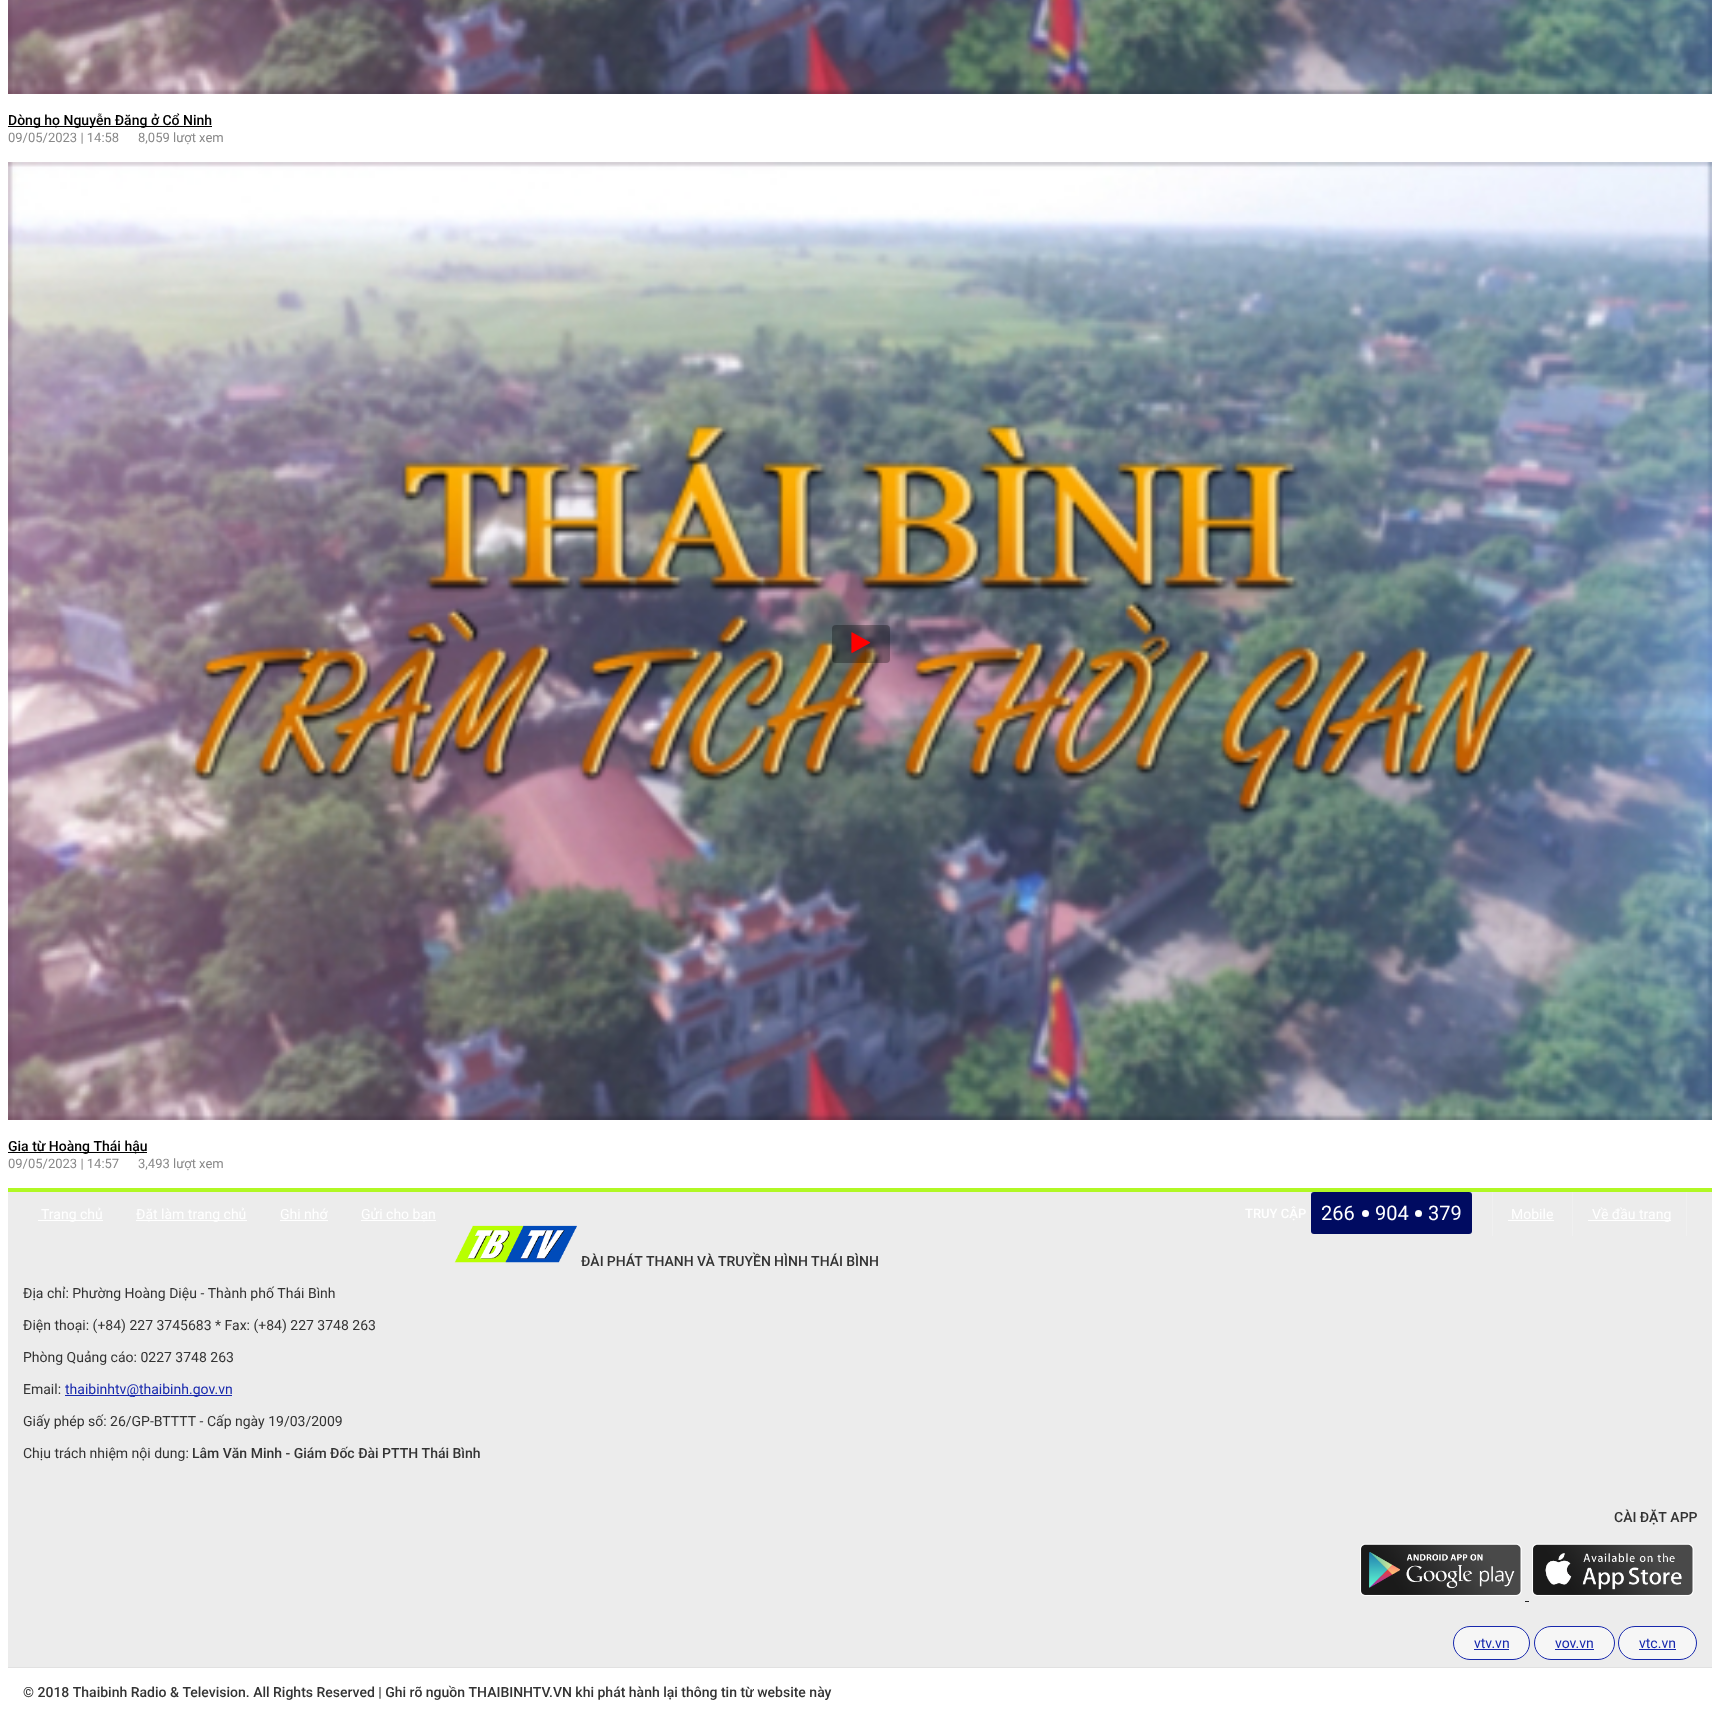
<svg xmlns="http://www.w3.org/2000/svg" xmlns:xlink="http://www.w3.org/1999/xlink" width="1720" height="1724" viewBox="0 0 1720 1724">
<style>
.cls-1{font:500 14px Roboto;fill:#000000}
.cls-2{font:13px Roboto;fill:#888888}
.cls-3{font:14px Roboto;fill:#ffffff}
.cls-4{font:500 13px Roboto;fill:#ffffff}
.cls-5{font:20px Roboto;fill:#ffffff}
.cls-6{font:500 14px Roboto;fill:#333333}
.cls-7{font:14px Roboto;fill:#333333}
.cls-8{font:14px Roboto;fill:#1728ad}
</style>
<rect width="100%" height="100%" fill="#ffffff"/>
<image xlink:href="image0.png" x="8" y="0" width="1704" height="94"/>
<rect fill="#000000" x="8" y="126" width="204" height="1"/>
<image xlink:href="image1.png" x="8" y="162" width="1704" height="958"/>
<rect fill="#000000" fill-opacity="0.3" x="832" y="625" width="58" height="38" rx="4"/>
<image xlink:href="image2.png" x="851" y="632" width="20" height="21"/>
<rect fill="#000000" x="8" y="1152" width="139" height="1"/>
<rect fill="#ececec" x="8" y="1192" width="1704" height="475"/>
<rect fill="#b0f824" x="8" y="1188" width="1704" height="4"/>
<rect fill="#ffffff" x="38" y="1220" width="65" height="1"/>
<rect fill="#ffffff" x="136" y="1220" width="111" height="1"/>
<rect fill="#ffffff" x="280" y="1220" width="48" height="1"/>
<rect fill="#ffffff" x="361" y="1220" width="75" height="1"/>
<rect fill="#000b61" x="1311" y="1192" width="161" height="42" rx="3"/>
<circle fill="#ffffff" cx="1365.5" cy="1213.5" r="3.5"/>
<circle fill="#ffffff" cx="1418.5" cy="1213.5" r="3.5"/>
<rect fill="#f0f0f0" x="1492" y="1192" width="1" height="44"/>
<rect fill="#ffffff" x="1508" y="1220" width="46" height="1"/>
<rect fill="#f0f0f0" x="1686" y="1192" width="1" height="44"/>
<rect fill="#f0f0f0" x="1572" y="1192" width="1" height="44"/>
<rect fill="#ffffff" x="1588" y="1220" width="83" height="1"/>
<image xlink:href="image3.png" x="454" y="1225" width="123" height="38"/>
<rect fill="#1728ad" x="65" y="1395" width="167" height="1"/>
<image xlink:href="image4.png" x="1360" y="1543" width="162" height="53"/>
<image xlink:href="image5.png" x="1532" y="1543" width="162" height="53"/>
<rect fill="#222222" x="1525" y="1601" width="4" height="1"/>
<rect fill="#f6f6f6" stroke="#1728ad" x="1453.5" y="1626.5" width="76" height="33" rx="16.5"/>
<rect fill="#1728ad" x="1474" y="1649" width="35" height="1"/>
<rect fill="#f6f6f6" stroke="#1728ad" x="1534.5" y="1626.5" width="80" height="33" rx="16.5"/>
<rect fill="#1728ad" x="1555" y="1649" width="39" height="1"/>
<rect fill="#f6f6f6" stroke="#1728ad" x="1618.5" y="1626.5" width="78" height="33" rx="16.5"/>
<rect fill="#1728ad" x="1639" y="1649" width="37" height="1"/>
<rect fill="#e1e1e1" x="8" y="1667" width="1704" height="1"/>
<text class="cls-1" x="8" y="125">Dòng họ Nguyễn Đăng ở Cổ Ninh</text>
<text class="cls-2" x="8" y="142">09/05/2023 | 14:58</text>
<text class="cls-2" x="138" y="142">8,059 lượt xem</text>
<text class="cls-1" x="8" y="1151">Gia từ Hoàng Thái hậu</text>
<text class="cls-2" x="8" y="1168">09/05/2023 | 14:57</text>
<text class="cls-2" x="138" y="1168">3,493 lượt xem</text>
<text class="cls-3" x="41" y="1219">Trang chủ</text>
<text class="cls-3" x="136" y="1219">Đặt làm trang chủ</text>
<text class="cls-3" x="280" y="1219">Ghi nhớ</text>
<text class="cls-3" x="361" y="1219">Gửi cho bạn</text>
<text class="cls-4" x="1245" y="1218">TRUY CẬP</text>
<text class="cls-5" x="1321" y="1220">266</text>
<text class="cls-5" x="1375" y="1220">904</text>
<text class="cls-5" x="1428" y="1220">379</text>
<text class="cls-3" x="1511" y="1219">Mobile</text>
<text class="cls-3" x="1592" y="1219">Về đầu trang</text>
<text class="cls-6" x="581" y="1266" word-spacing="-0.25">ĐÀI PHÁT THANH VÀ TRUYỀN HÌNH THÁI BÌNH</text>
<text class="cls-7" x="23" y="1298">Địa chỉ: Phường Hoàng Diệu - Thành phố Thái Bình</text>
<text class="cls-7" x="23" y="1330">Điện thoại: (+84) 227 3745683 * Fax: (+84) 227 3748 263</text>
<text class="cls-7" x="23" y="1362">Phòng Quảng cáo: 0227 3748 263</text>
<text class="cls-7" x="23" y="1394">Email:</text>
<text class="cls-8" x="65" y="1394">thaibinhtv@thaibinh.gov.vn</text>
<text class="cls-7" x="23" y="1426">Giấy phép số: 26/GP-BTTTT - Cấp ngày 19/03/2009</text>
<text class="cls-7" x="23" y="1458">Chịu trách nhiệm nội dung:</text>
<text class="cls-6" x="192" y="1458">Lâm Văn Minh - Giám Đốc Đài PTTH Thái Bình</text>
<text class="cls-6" x="1614" y="1522">CÀI ĐẶT APP</text>
<text class="cls-8" x="1474" y="1648">vtv.vn</text>
<text class="cls-8" x="1555" y="1648">vov.vn</text>
<text class="cls-8" x="1639" y="1648">vtc.vn</text>
<text class="cls-6" x="23" y="1697">© 2018 Thaibinh Radio &amp; Television. All Rights Reserved | Ghi rõ nguồn THAIBINHTV.VN khi phát hành lại thông tin từ website này</text>
</svg>
